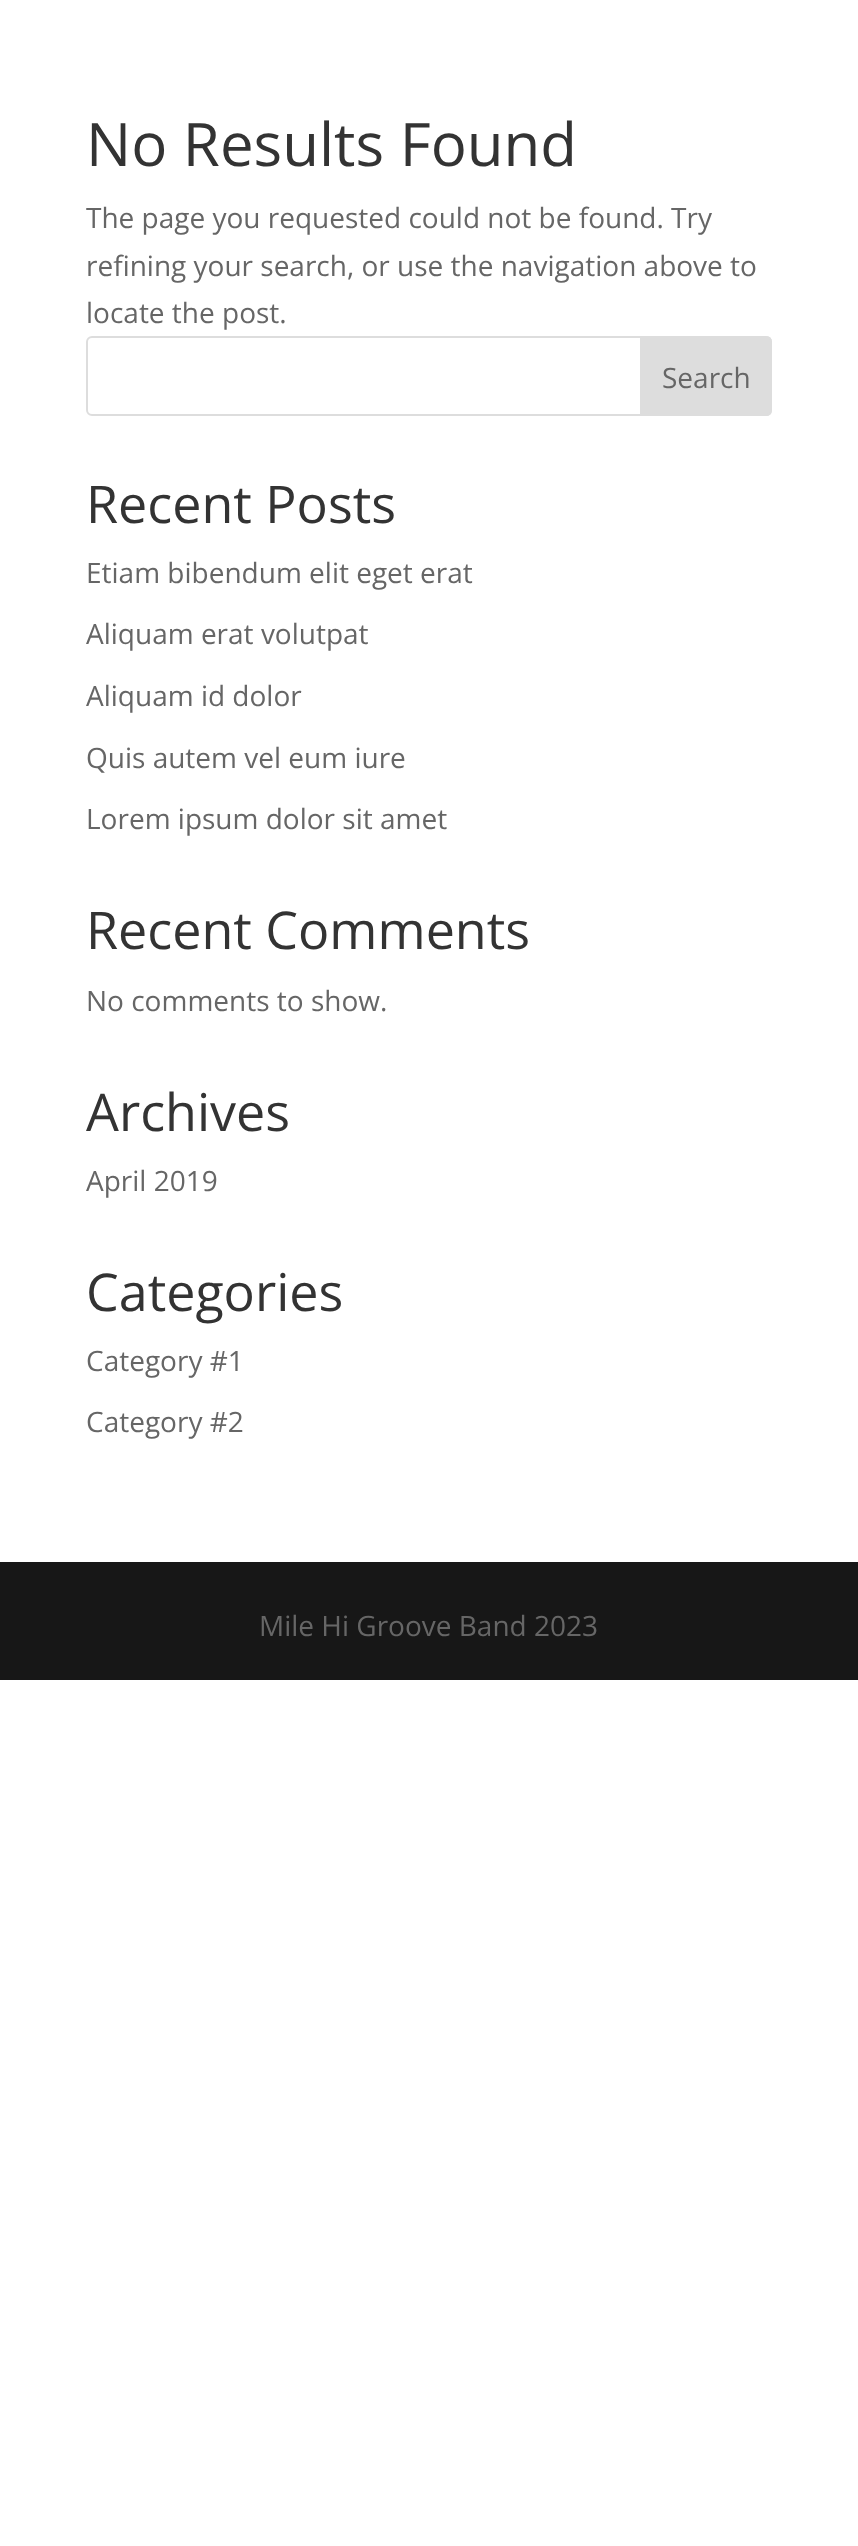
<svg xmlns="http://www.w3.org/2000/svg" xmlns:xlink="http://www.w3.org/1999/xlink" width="858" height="2546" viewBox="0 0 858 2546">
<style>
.cls-1{font:60px Open Sans;fill:#333333}
.cls-2{font:28px Open Sans;fill:#666666}
.cls-3{font:52px Open Sans;fill:#333333}
</style>
<rect width="100%" height="100%" fill="#ffffff"/>
<rect fill="none" stroke="#dddddd" stroke-width="2" x="87" y="337" width="684" height="78" rx="5"/>
<path fill="#dddddd" stroke="#dddddd" stroke-width="2" d="M641 337H766C769 337 771 339 771 342V410C771 413 769 415 766 415H641Z"/>
<rect fill="#171717" x="0" y="1562" width="858" height="118"/>
<text class="cls-1" x="86" y="166">No Results Found</text>
<text class="cls-2"><tspan x="86" y="228">The page you requested could not be found. Try</tspan><tspan x="86" y="276">refining your search, or use the navigation above to</tspan><tspan x="86" y="323">locate the post.</tspan></text>
<text class="cls-2" x="662" y="388">Search</text>
<text class="cls-3" x="86" y="523">Recent Posts</text>
<text class="cls-2" x="86" y="583">Etiam bibendum elit eget erat</text>
<text class="cls-2" x="86" y="644">Aliquam erat volutpat</text>
<text class="cls-2" x="86" y="706">Aliquam id dolor</text>
<text class="cls-2" x="86" y="768">Quis autem vel eum iure</text>
<text class="cls-2" x="86" y="829">Lorem ipsum dolor sit amet</text>
<text class="cls-3" x="86" y="949">Recent Comments</text>
<text class="cls-2" x="86" y="1011">No comments to show.</text>
<text class="cls-3" x="86" y="1131">Archives</text>
<text class="cls-2" x="86" y="1191">April 2019</text>
<text class="cls-3" x="86" y="1311">Categories</text>
<text class="cls-2" x="86" y="1371">Category #1</text>
<text class="cls-2" x="86" y="1432">Category #2</text>
<text class="cls-2" x="259" y="1636">Mile Hi Groove Band 2023</text>
</svg>
